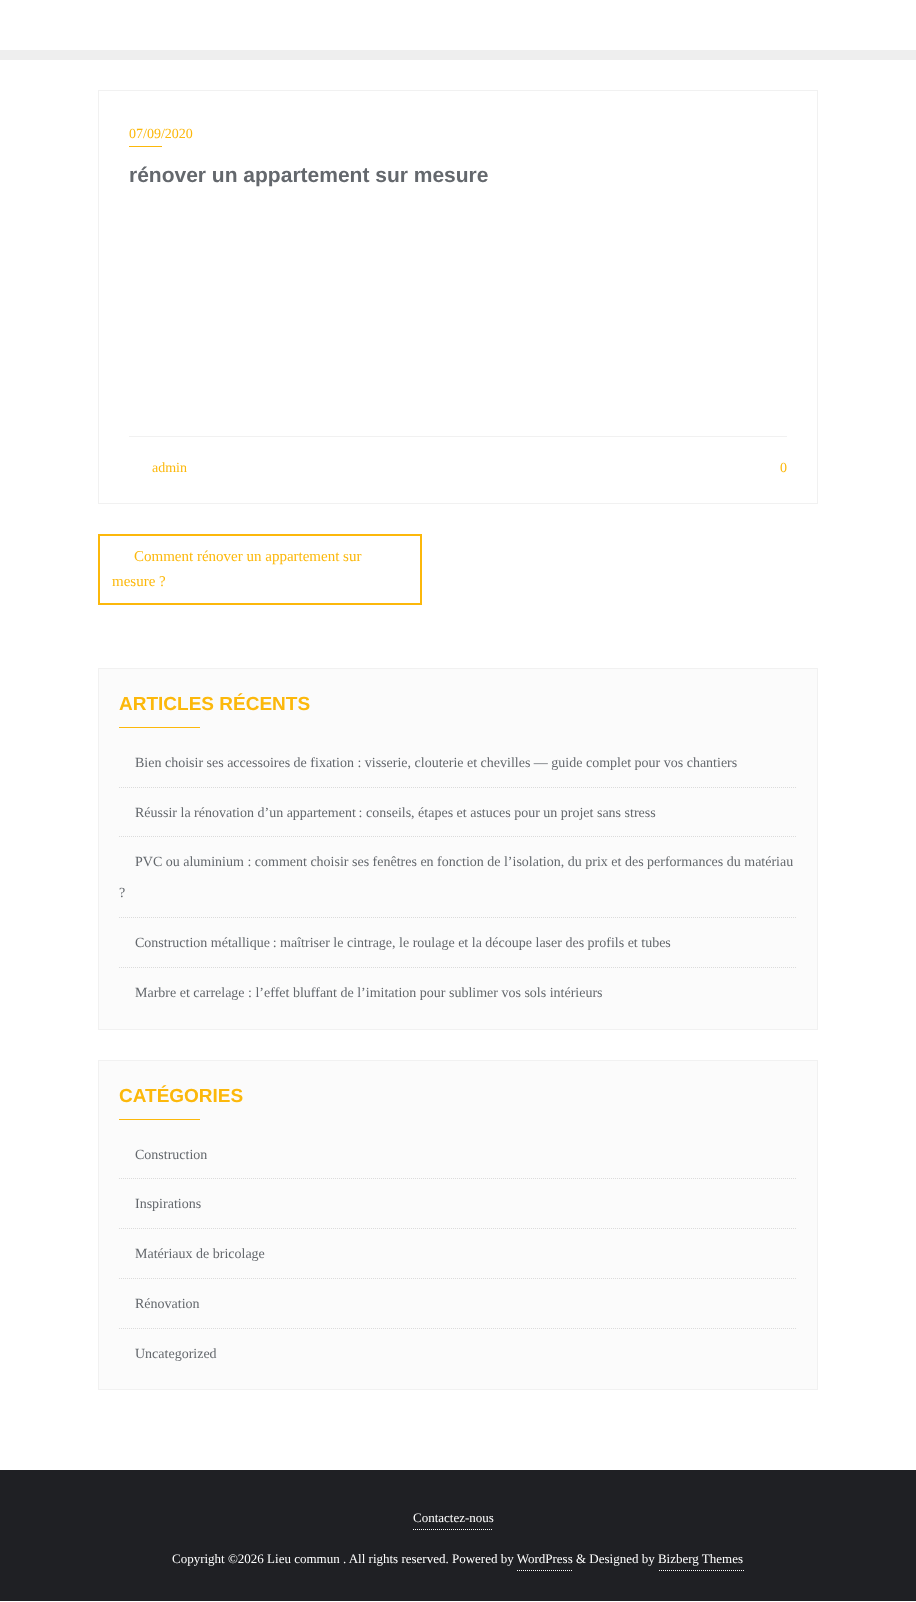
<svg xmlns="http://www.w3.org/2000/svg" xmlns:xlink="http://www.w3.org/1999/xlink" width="916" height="1602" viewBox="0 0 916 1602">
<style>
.cls-1{font:14px Liberation Serif;fill:#fcb80b}
.cls-2{font:bold 21px Liberation Sans;fill:#64686d}
.cls-3{font:15px Liberation Serif;fill:#fcb80b}
.cls-4{font:bold 19px Liberation Sans;fill:#fcb80b}
.cls-5{font:14px Liberation Serif;fill:#64686d}
.cls-6{font:13px Liberation Serif;fill:#ffffff}
</style>
<rect width="100%" height="100%" fill="#ffffff"/>
<rect fill="#eeeeee" x="0" y="50" width="916" height="10"/>
<rect fill="none" stroke="#f1f1f1" x="98.5" y="90.5" width="719" height="413"/>
<rect fill="#fcb80b" x="129" y="146" width="33" height="1"/>
<rect fill="#f1f1f1" x="129" y="436" width="658" height="1"/>
<rect fill="none" stroke="#fcb80b" stroke-width="2" x="99" y="535" width="322" height="69"/>
<rect fill="#fbfbfb" stroke="#f1f1f1" x="98.5" y="668.5" width="719" height="361"/>
<rect fill="#fcb80b" x="119" y="727" width="81" height="1"/>
<path fill="none" stroke="#dbdbdb" stroke-dasharray="1 1" d="M119 787.5H797"/>
<path fill="none" stroke="#dbdbdb" stroke-dasharray="1 1" d="M119 836.5H797"/>
<path fill="none" stroke="#dbdbdb" stroke-dasharray="1 1" d="M119 917.5H797"/>
<path fill="none" stroke="#dbdbdb" stroke-dasharray="1 1" d="M119 967.5H797"/>
<rect fill="#fbfbfb" stroke="#f1f1f1" x="98.5" y="1060.5" width="719" height="329"/>
<rect fill="#fcb80b" x="119" y="1119" width="81" height="1"/>
<path fill="none" stroke="#dbdbdb" stroke-dasharray="1 1" d="M119 1178.5H797"/>
<path fill="none" stroke="#dbdbdb" stroke-dasharray="1 1" d="M119 1228.5H797"/>
<path fill="none" stroke="#dbdbdb" stroke-dasharray="1 1" d="M119 1278.5H797"/>
<path fill="none" stroke="#dbdbdb" stroke-dasharray="1 1" d="M119 1328.5H797"/>
<rect fill="#1f2024" x="0" y="1470" width="916" height="131"/>
<path fill="none" stroke="#ffffff" stroke-dasharray="1 1" d="M413 1529.5H493"/>
<path fill="none" stroke="#ffffff" stroke-dasharray="1 1" d="M517 1570.5H573"/>
<path fill="none" stroke="#ffffff" stroke-dasharray="1 1" d="M659 1570.5H744"/>
<text class="cls-1" x="129" y="138">07/09/2020</text>
<text class="cls-2" x="129" y="182">rénover un appartement sur mesure</text>
<text class="cls-1" x="152" y="472">admin</text>
<text class="cls-1" x="780" y="472">0</text>
<text class="cls-3" x="134" y="561">Comment rénover un appartement sur</text>
<text class="cls-3" x="112" y="586">mesure ?</text>
<text class="cls-4" x="119" y="710">ARTICLES RÉCENTS</text>
<text class="cls-5" x="135" y="767">Bien choisir ses accessoires de fixation : visserie, clouterie et chevilles — guide complet pour vos chantiers</text>
<text class="cls-5" x="135" y="817">Réussir la rénovation d’un appartement : conseils, étapes et astuces pour un projet sans stress</text>
<text class="cls-5" x="135" y="866">PVC ou aluminium : comment choisir ses fenêtres en fonction de l’isolation, du prix et des performances du matériau</text>
<text class="cls-5" x="119" y="897">?</text>
<text class="cls-5" x="135" y="947">Construction métallique : maîtriser le cintrage, le roulage et la découpe laser des profils et tubes</text>
<text class="cls-5" x="135" y="997">Marbre et carrelage : l’effet bluffant de l’imitation pour sublimer vos sols intérieurs</text>
<text class="cls-4" x="119" y="1102">CATÉGORIES</text>
<text class="cls-5" x="135" y="1159">Construction</text>
<text class="cls-5" x="135" y="1208">Inspirations</text>
<text class="cls-5" x="135" y="1258">Matériaux de bricolage</text>
<text class="cls-5" x="135" y="1308">Rénovation</text>
<text class="cls-5" x="135" y="1358">Uncategorized</text>
<text class="cls-6" x="413" y="1522">Contactez-nous</text>
<text class="cls-6" x="172" y="1563">Copyright ©2026 Lieu commun . All rights reserved. Powered by WordPress &amp; Designed by Bizberg Themes</text>
</svg>
